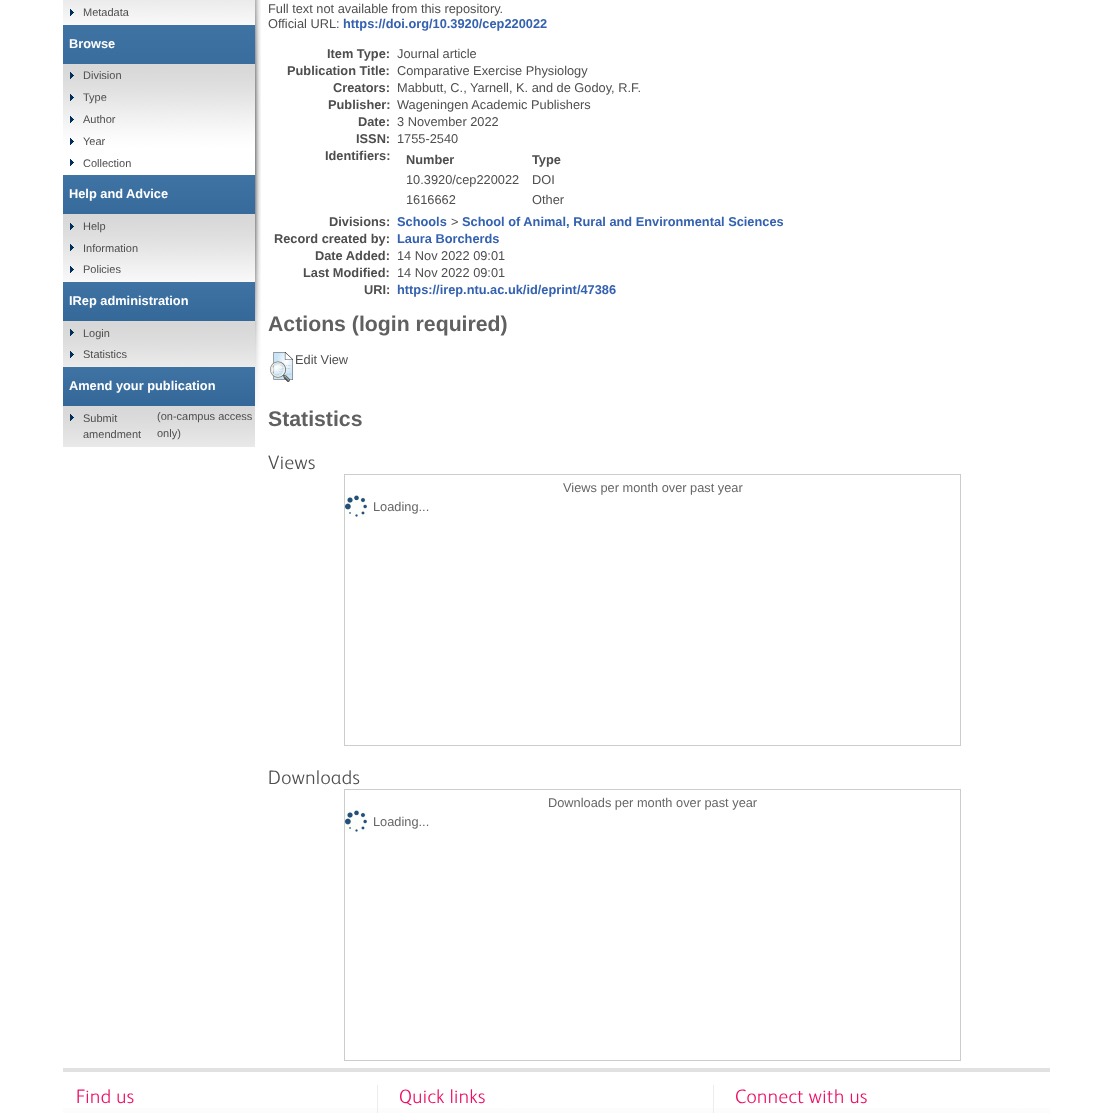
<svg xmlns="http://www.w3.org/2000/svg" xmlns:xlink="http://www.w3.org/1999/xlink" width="1113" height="1113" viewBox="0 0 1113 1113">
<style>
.cls-1{font:11px Liberation Sans;fill:#4e4e4e}
.cls-2{font:bold 12.8px Liberation Sans;fill:#ffffff}
.cls-3{font:12.8px Liberation Sans;fill:#4e4e4e}
.cls-4{font:bold 12.8px Liberation Sans;fill:#3461b0}
.cls-5{font:bold 12.8px Liberation Sans;fill:#4e4e4e}
.cls-6{font:bold 21.25px Liberation Sans;fill:#606060}
.cls-7{font:300 19.5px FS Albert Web;letter-spacing:0.5px;fill:#4e4e4e}
.cls-8{font:12.8px Liberation Sans;fill:#666666}
.cls-9{font:300 19.5px FS Albert Web;letter-spacing:0.5px;fill:#ed1165}
</style>
<defs>
<linearGradient id="g1" gradientUnits="userSpaceOnUse" x1="159" y1="25" x2="159" y2="175"><stop offset="0" stop-color="#3f73a4"/><stop offset="1" stop-color="#295c8d"/></linearGradient>
<linearGradient id="g2" gradientUnits="userSpaceOnUse" x1="159" y1="175" x2="159" y2="282"><stop offset="0" stop-color="#3f73a4"/><stop offset="1" stop-color="#295c8d"/></linearGradient>
<linearGradient id="g3" gradientUnits="userSpaceOnUse" x1="159" y1="282" x2="159" y2="367"><stop offset="0" stop-color="#3f73a4"/><stop offset="1" stop-color="#295c8d"/></linearGradient>
<linearGradient id="g4" gradientUnits="userSpaceOnUse" x1="159" y1="367" x2="159" y2="447"><stop offset="0" stop-color="#3f73a4"/><stop offset="1" stop-color="#295c8d"/></linearGradient>
<linearGradient id="g5" gradientUnits="userSpaceOnUse" x1="557" y1="1072" x2="557" y2="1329"><stop offset="0" stop-color="#ffffff"/><stop offset="1" stop-color="#ededed"/></linearGradient>
</defs>
<rect width="100%" height="100%" fill="#ffffff"/>
<image xlink:href="image0.png" x="255" y="0" width="6" height="408"/>
<image xlink:href="image1.png" x="63" y="0" width="192" height="25"/>
<image xlink:href="image2.png" x="70" y="9" width="4" height="7"/>
<rect fill="url(#g1)" x="63" y="25" width="192" height="39"/>
<image xlink:href="image3.png" x="63" y="64" width="192" height="111"/>
<image xlink:href="image4.png" x="70" y="72" width="4" height="7"/>
<image xlink:href="image5.png" x="70" y="94" width="4" height="7"/>
<image xlink:href="image2.png" x="70" y="116" width="4" height="7"/>
<image xlink:href="image6.png" x="70" y="138" width="4" height="7"/>
<image xlink:href="image7.png" x="70" y="159" width="4" height="7"/>
<rect fill="url(#g2)" x="63" y="175" width="192" height="39"/>
<image xlink:href="image8.png" x="63" y="214" width="192" height="68"/>
<image xlink:href="image9.png" x="70" y="223" width="4" height="7"/>
<image xlink:href="image5.png" x="70" y="244" width="4" height="7"/>
<image xlink:href="image2.png" x="70" y="266" width="4" height="7"/>
<rect fill="url(#g3)" x="63" y="282" width="192" height="39"/>
<rect fill="#d8d8d8" x="63" y="321" width="192" height="2"/>
<image xlink:href="image11.png" x="63" y="323" width="192" height="44"/>
<image xlink:href="image10.png" x="70" y="329" width="4" height="7"/>
<image xlink:href="image12.png" x="70" y="351" width="4" height="7"/>
<rect fill="url(#g4)" x="63" y="367" width="192" height="39"/>
<image xlink:href="image13.png" x="63" y="406" width="192" height="41"/>
<image xlink:href="image4.png" x="70" y="414" width="4" height="7"/>
<image xlink:href="image14.png" x="270" y="352" width="23" height="30"/>
<rect fill="none" stroke="#cccccc" x="344.5" y="474.5" width="616" height="271"/>
<image xlink:href="image15.png" x="345" y="495" width="22" height="22"/>
<rect fill="none" stroke="#cccccc" x="344.5" y="789.5" width="616" height="271"/>
<image xlink:href="image15.png" x="345" y="810" width="22" height="22"/>
<rect fill="url(#g5)" x="63" y="1108" width="987" height="5"/>
<rect fill="#e1e1e1" x="63" y="1068" width="987" height="4"/>
<rect fill="#ededed" x="377" y="1085" width="1" height="28"/>
<rect fill="#ededed" x="713" y="1085" width="1" height="28"/>
<text class="cls-1" x="83" y="16">Metadata</text>
<text class="cls-2" x="69" y="48">Browse</text>
<text class="cls-1" x="83" y="79">Division</text>
<text class="cls-1" x="83" y="101">Type</text>
<text class="cls-1" x="83" y="123">Author</text>
<text class="cls-1" x="83" y="145">Year</text>
<text class="cls-1" x="83" y="167">Collection</text>
<text class="cls-2" x="69" y="198">Help and Advice</text>
<text class="cls-1" x="83" y="230">Help</text>
<text class="cls-1"><tspan x="83" y="252">Information</tspan><tspan x="83" y="273">Policies</tspan></text>
<text class="cls-2" x="69" y="305">IRep administration</text>
<text class="cls-1"><tspan x="83" y="337">Login</tspan><tspan x="83" y="358">Statistics</tspan></text>
<text class="cls-2" x="69" y="390">Amend your publication</text>
<text class="cls-1"><tspan x="83" y="422">Submit</tspan><tspan x="83" y="438">amendment</tspan></text>
<text class="cls-1"><tspan x="157" y="420">(on-campus access</tspan><tspan x="157" y="437">only)</tspan></text>
<text class="cls-3"><tspan x="268" y="13">Full text not available from this repository.</tspan><tspan x="268" y="28">Official URL:</tspan></text>
<text class="cls-4" x="343" y="28">https://doi.org/10.3920/cep220022</text>
<text class="cls-5" x="327" y="58">Item Type:</text>
<text class="cls-3" x="397" y="58">Journal article</text>
<text class="cls-5" x="287" y="75">Publication Title:</text>
<text class="cls-3" x="397" y="75">Comparative Exercise Physiology</text>
<text class="cls-5" x="333" y="92">Creators:</text>
<text class="cls-3" x="397" y="92">Mabbutt, C.,</text>
<text class="cls-3" x="470" y="92">Yarnell, K. and de Godoy, R.F.</text>
<text class="cls-5" x="328" y="109">Publisher:</text>
<text class="cls-3" x="397" y="109">Wageningen Academic Publishers</text>
<text class="cls-5" x="358" y="126">Date:</text>
<text class="cls-3" x="397" y="126">3 November 2022</text>
<text class="cls-5" x="356" y="143">ISSN:</text>
<text class="cls-3" x="397" y="143">1755-2540</text>
<text class="cls-5" x="325" y="160">Identifiers:</text>
<text class="cls-5" x="406" y="164">Number</text>
<text class="cls-5" x="532" y="164">Type</text>
<text class="cls-3" x="406" y="184">10.3920/cep220022</text>
<text class="cls-3" x="532" y="184">DOI</text>
<text class="cls-3" x="406" y="204">1616662</text>
<text class="cls-3" x="532" y="204">Other</text>
<text class="cls-5" x="329" y="226">Divisions:</text>
<text class="cls-4" x="397" y="226">Schools</text>
<text class="cls-3" x="451" y="226">&gt;</text>
<text class="cls-4" x="462" y="226">School of Animal, Rural and Environmental Sciences</text>
<text class="cls-5" x="274" y="243">Record created by:</text>
<text class="cls-4" x="397" y="243">Laura Borcherds</text>
<text class="cls-5" x="315" y="260">Date Added:</text>
<text class="cls-3" x="397" y="260">14 Nov 2022 09:01</text>
<text class="cls-5" x="303" y="277">Last Modified:</text>
<text class="cls-3" x="397" y="277">14 Nov 2022 09:01</text>
<text class="cls-5" x="364" y="294">URI:</text>
<text class="cls-4" x="397" y="294">https://irep.ntu.ac.uk/id/eprint/47386</text>
<text class="cls-6" x="268" y="331">Actions (login required)</text>
<text class="cls-3" x="295" y="364">Edit View</text>
<text class="cls-6" x="268" y="426">Statistics</text>
<text class="cls-7" x="268" y="469">Views</text>
<text class="cls-8" x="563" y="492">Views per month over past year</text>
<text class="cls-8" x="373" y="511">Loading...</text>
<text class="cls-7" x="268" y="784">Downloads</text>
<text class="cls-8" x="548" y="807">Downloads per month over past year</text>
<text class="cls-8" x="373" y="826">Loading...</text>
<text class="cls-9" x="76" y="1103">Find us</text>
<text class="cls-9" x="399" y="1103">Quick links</text>
<text class="cls-9" x="735" y="1103">Connect with us</text>
</svg>
